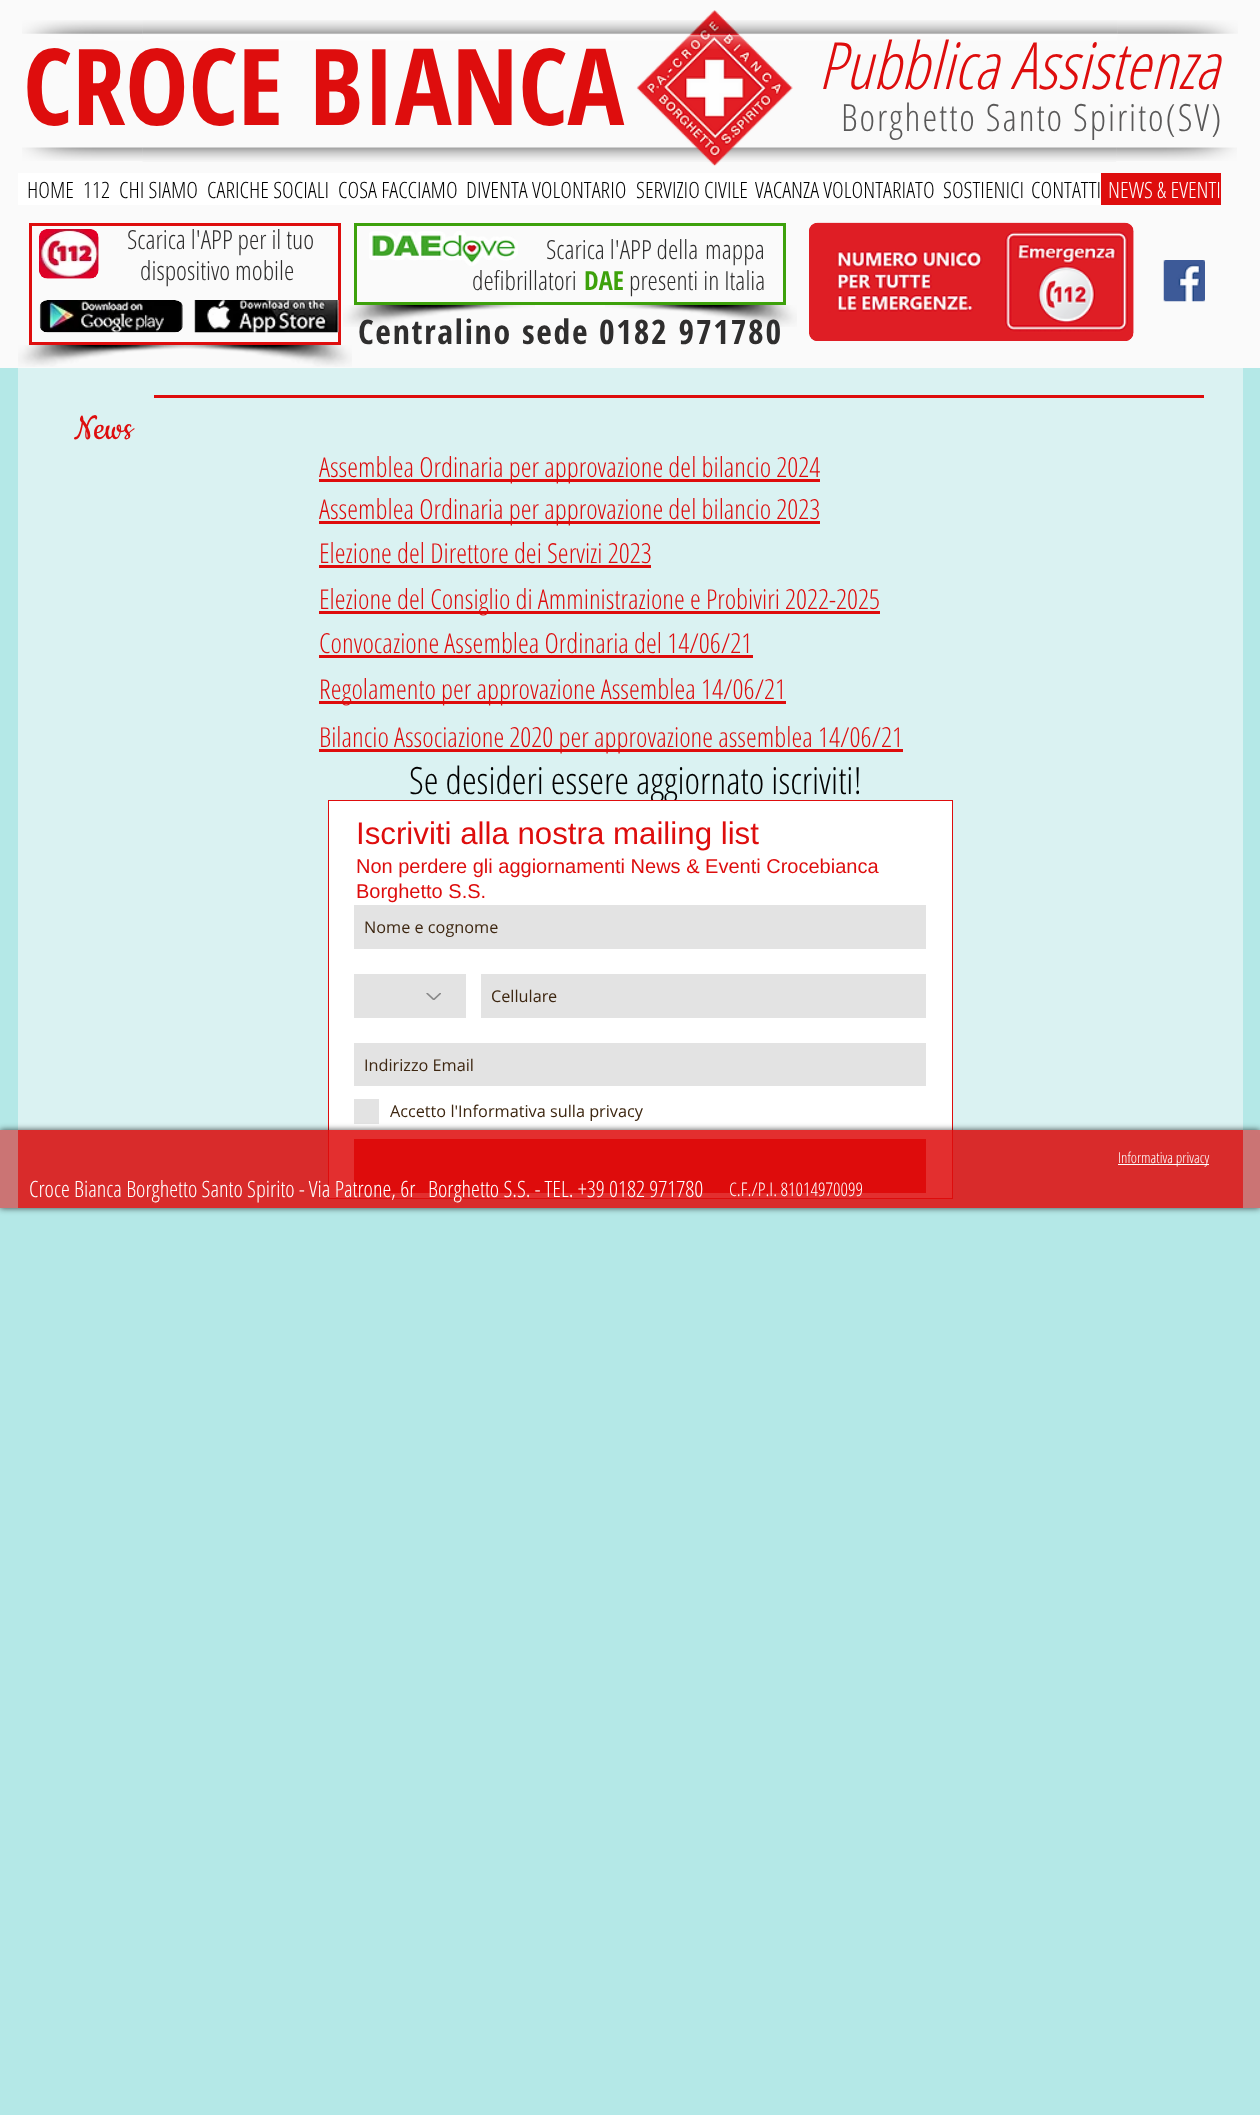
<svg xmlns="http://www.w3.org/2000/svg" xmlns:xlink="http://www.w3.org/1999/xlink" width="1260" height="2115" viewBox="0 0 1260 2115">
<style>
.cls-1{font:bold 106.25px Open Sans Condensed;fill:#de0d0d}
.cls-2{font:italic 300 65px Open Sans Condensed;fill:#de0d0d}
.cls-3{font:300 37.5px Open Sans Condensed;letter-spacing:1.9px;fill:#595858}
.cls-4{font:300 22.5px Open Sans Condensed;fill:#000000}
.cls-5{font:300 22.5px Open Sans Condensed;fill:#ffffff}
.cls-6{font:300 26.25px Open Sans Condensed;fill:#2f2e2e}
.cls-7{font:bold 26.25px Open Sans Condensed;fill:#3da10b}
.cls-8{font:bold 33.75px Open Sans Condensed;letter-spacing:1.75px;fill:#2f2e2e}
.cls-9{font:40px Cookie;fill:#de0d0d}
.cls-10{font:300 27.5px Open Sans Condensed;fill:#de0d0d}
.cls-11{font:300 37.5px Open Sans Condensed;fill:#000000}
.cls-12{font:31.25px Liberation Sans;fill:#de0d0d}
.cls-13{font:20px Liberation Sans;fill:#de0d0d}
.cls-14{font:16.25px Open Sans;fill:#3d2610}
.cls-15{font:300 15px Open Sans Condensed;fill:#ffffff}
.cls-16{font:300 18.75px Open Sans Condensed;fill:#ffffff}
</style>
<defs>
<clipPath id="clip1"><path d="M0 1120H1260V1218H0ZM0 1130H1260V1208H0Z" clip-rule="evenodd"/></clipPath>
</defs>
<rect width="100%" height="100%" fill="#b4e8e7"/>
<rect fill="#fafafa" x="0" y="0" width="1260" height="368"/>
<image xlink:href="image5.png" x="142" y="147" width="975" height="15"/>
<image xlink:href="image0.png" x="636" y="10" width="157" height="156"/>
<image xlink:href="image4.png" x="22" y="147" width="121" height="14"/>
<image xlink:href="image6.png" x="1116" y="147" width="121" height="14"/>
<rect fill="#ffffff" x="18" y="173" width="1083" height="32"/>
<rect fill="#de0d0d" x="1101" y="173" width="120" height="32"/>
<rect fill="none" stroke="#de0d0d" stroke-width="3" x="30.5" y="224.5" width="309" height="119"/>
<image xlink:href="image7.png" x="39" y="229" width="60" height="50"/>
<image xlink:href="image8.png" x="39" y="300" width="144" height="33"/>
<image xlink:href="image9.png" x="194" y="300" width="145" height="33"/>
<image xlink:href="image10.png" x="18" y="345" width="192" height="22"/>
<image xlink:href="image11.png" x="165" y="345" width="187" height="22"/>
<rect fill="none" stroke="#3da10b" stroke-width="3" x="355.5" y="224.5" width="429" height="79"/>
<image xlink:href="image12.png" x="369" y="231" width="149" height="35"/>
<image xlink:href="image13.png" x="343" y="305" width="192" height="22"/>
<image xlink:href="image14.png" x="605" y="305" width="192" height="22"/>
<image xlink:href="image15.png" x="809" y="222" width="325" height="119"/>
<image xlink:href="image16.png" x="1163" y="260" width="42" height="42"/>
<rect fill="#daf2f2" x="18" y="368" width="1225" height="762"/>
<rect fill="#de0d0d" x="154" y="395" width="1050" height="3"/>
<rect fill="#de0d0d" x="319" y="479" width="501" height="3"/>
<rect fill="#de0d0d" x="319" y="565" width="332" height="3"/>
<rect fill="#de0d0d" x="319" y="611" width="561" height="3"/>
<rect fill="#de0d0d" x="319" y="655" width="434" height="3"/>
<rect fill="#de0d0d" x="319" y="701" width="467" height="3"/>
<rect fill="#de0d0d" x="319" y="749" width="584" height="3"/>
<rect fill="#de0d0d" x="319" y="521" width="501" height="3"/>
<text class="cls-1" x="23" y="125">CROCE BIANCA</text>
<image xlink:href="image2.png" x="142" y="20" width="976" height="29"/>
<image xlink:href="image1.png" x="22" y="20" width="121" height="29"/>
<image xlink:href="image3.png" x="1117" y="20" width="121" height="14"/>
<text class="cls-2" x="818" y="89">Pubblica Assistenza</text>
<text class="cls-3" x="841" y="131">Borghetto Santo Spirito(SV)</text>
<text class="cls-4" x="27" y="198">HOME</text>
<text class="cls-4" x="83" y="198">112</text>
<text class="cls-4" x="119" y="198">CHI SIAMO</text>
<text class="cls-4" x="207" y="198">CARICHE SOCIALI</text>
<text class="cls-4" x="338" y="198">COSA FACCIAMO</text>
<text class="cls-4" x="466" y="198">DIVENTA VOLONTARIO</text>
<text class="cls-4" x="636" y="198">SERVIZIO CIVILE</text>
<text class="cls-4" x="755" y="198">VACANZA VOLONTARIATO</text>
<text class="cls-4" x="943" y="198">SOSTIENICI</text>
<text class="cls-4" x="1031" y="198">CONTATTI</text>
<text class="cls-5" x="1108" y="198">NEWS &amp; EVENTI</text>
<text class="cls-6" x="127" y="249">Scarica l'APP per il tuo</text>
<text class="cls-6" x="140" y="280">dispositivo mobile</text>
<text class="cls-6" x="546" y="259">Scarica l'APP della</text>
<text class="cls-6" x="705" y="259">mappa</text>
<text class="cls-6" x="472" y="290">defibrillatori</text>
<text class="cls-7" x="584" y="290">DAE</text>
<text class="cls-6" x="629" y="290">presenti in Italia</text>
<text class="cls-8" x="358" y="344">Centralino sede</text>
<text class="cls-8" x="599" y="344">0182 971780</text>
<text class="cls-9" x="74" y="439">News</text>
<text class="cls-10" x="319" y="477">Assemblea Ordinaria per approvazione del bilancio 2024</text>
<text class="cls-10"><tspan x="319" y="563">Elezione del Direttore dei Servizi 2023</tspan><tspan x="319" y="609">Elezione del Consiglio di Amministrazione e Probiviri 2022-2025</tspan><tspan x="319" y="653">Convocazione Assemblea Ordinaria del 14/06/21</tspan><tspan x="319" y="699">Regolamento per approvazione Assemblea 14/06/21</tspan><tspan x="319" y="747">Bilancio Associazione 2020 per approvazione assemblea 14/06/21</tspan></text>
<text class="cls-10" x="319" y="519">Assemblea Ordinaria per approvazione del bilancio 2023</text>
<text class="cls-11" x="409" y="794">Se desideri essere aggiornato iscriviti!</text>
<rect fill="#ffffff" stroke="#de0d0d" x="328.5" y="800.5" width="624" height="398"/>
<text class="cls-12" x="356" y="844">Iscriviti alla nostra mailing list</text>
<text class="cls-13"><tspan x="356" y="873">Non perdere gli aggiornamenti News &amp; Eventi Crocebianca</tspan><tspan x="356" y="898">Borghetto S.S.</tspan></text>
<rect fill="#e3e3e3" x="354" y="905" width="572" height="44"/>
<text class="cls-14" x="364" y="933">Nome e cognome</text>
<rect fill="#e3e3e3" x="354" y="974" width="112" height="44"/>
<image xlink:href="image17.png" x="426" y="993" width="15" height="7"/>
<rect fill="#e3e3e3" x="481" y="974" width="445" height="44"/>
<text class="cls-14" x="491" y="1002">Cellulare</text>
<rect fill="#e3e3e3" x="354" y="1043" width="572" height="43"/>
<text class="cls-14" x="364" y="1071">Indirizzo Email</text>
<rect fill="#e3e3e3" x="354" y="1099" width="25" height="25"/>
<text class="cls-14" x="390" y="1117">Accetto l'Informativa sulla privacy</text>
<rect fill="#de0d0d" x="354" y="1139" width="572" height="54"/>
<g clip-path="url(#clip1)">
<rect fill="#000000" fill-opacity="0.7" filter="blur(3px)" x="0" y="1130" width="1260" height="78"/>
</g>
<rect fill="#de0d0d" fill-opacity="0.53" x="0" y="1130" width="1260" height="78"/>
<rect fill="#de0d0d" fill-opacity="0.7" x="18" y="1130" width="1225" height="78"/>
<rect fill="#ffffff" x="1118" y="1164" width="91" height="1"/>
<text class="cls-15" x="1118" y="1163">Informativa privacy</text>
<text class="cls-5" xml:space="preserve" x="29" y="1197">Croce Bianca Borghetto Santo Spirito - Via Patrone, 6r   Borghetto S.S. - TEL. +39 0182 971780</text>
<text class="cls-16" x="729" y="1196">C.F./P.I. 81014970099</text>
</svg>
